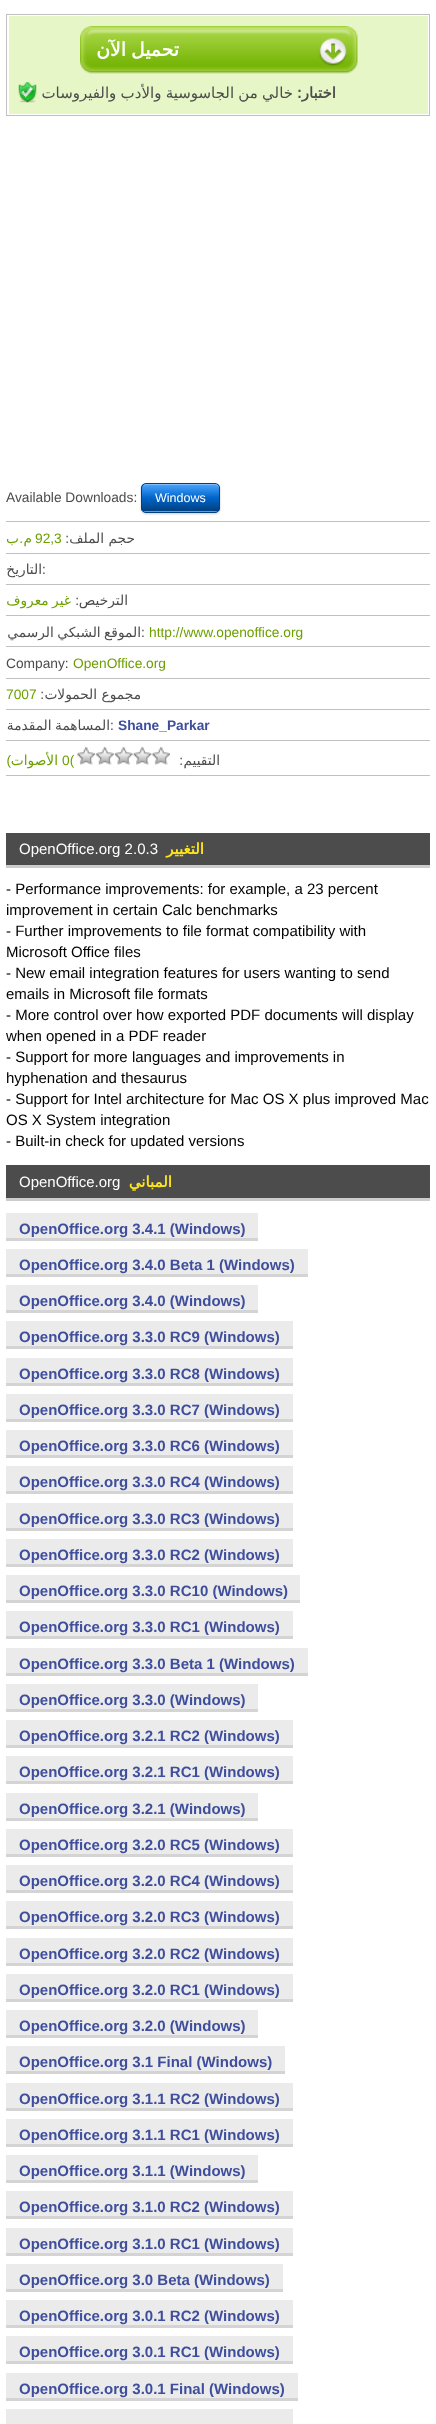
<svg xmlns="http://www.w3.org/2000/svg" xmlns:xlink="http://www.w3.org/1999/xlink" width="436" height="2424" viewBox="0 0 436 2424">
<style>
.cls-1{font:bold 18.75px DejaVu Sans;direction:rtl;fill:#ffffff}
.cls-2{font:15px DejaVu Sans;direction:rtl;fill:#4c4c4c}
.cls-3{font:bold 15px DejaVu Sans;direction:rtl;fill:#4c4c4c}
.cls-4{font:13.75px Liberation Sans;fill:#4c4c4c}
.cls-5{font:12.5px Liberation Sans;fill:#ffffff}
.cls-6{font:13.75px DejaVu Sans;direction:rtl;fill:#6ca000}
.cls-7{font:13.75px Liberation Sans;direction:rtl;fill:#6ca000}
.cls-8{font:13.75px Liberation Sans;fill:#6ca000}
.cls-9{font:13.75px Liberation Sans;direction:rtl;fill:#4c4c4c}
.cls-10{font:13.75px DejaVu Sans;direction:rtl;fill:#4c4c4c}
.cls-11{font:bold 13.75px Liberation Sans;fill:#3e4e9c}
.cls-12{font:15px Liberation Sans;fill:#ffffff}
.cls-13{font:bold 15px DejaVu Sans;direction:rtl;fill:#ffe718}
.cls-14{font:15px Liberation Sans;fill:#000000}
.cls-15{font:bold 15px Liberation Sans;fill:#3e4e9c}
</style>
<defs>
<clipPath id="clip1"><rect x="141" y="483" width="79" height="30" rx="5"/></clipPath>
<linearGradient id="g1" gradientUnits="userSpaceOnUse" x1="181" y1="484" x2="181" y2="511"><stop offset="0" stop-color="#4da6ff"/><stop offset="0.5" stop-color="#0066cc"/><stop offset="1" stop-color="#004080"/></linearGradient>
<linearGradient id="g2" gradientUnits="userSpaceOnUse" x1="181" y1="511" x2="181" y2="539"><stop offset="0" stop-color="#4da6ff"/><stop offset="0.5" stop-color="#0066cc"/><stop offset="1" stop-color="#004080"/></linearGradient>
</defs>
<rect width="100%" height="100%" fill="#ffffff"/>
<rect fill="none" stroke="#c0c0c0" x="6.5" y="14.5" width="423" height="101"/>
<rect fill="#e7f6c7" x="9" y="16" width="419" height="98"/>
<image xlink:href="image0.png" x="80" y="26" width="278" height="48"/>
<image xlink:href="image1.png" x="18" y="82" width="19" height="21"/>
<rect fill="#c0c0c0" x="6" y="521" width="424" height="1"/>
<rect fill="#000000" fill-opacity="0.2" filter="blur(1px)" x="141" y="484" width="79" height="30" rx="5"/>
<g clip-path="url(#clip1)">
<rect fill="url(#g1)" x="141" y="484" width="79" height="27"/>
<rect fill="url(#g2)" x="141" y="511" width="79" height="2"/>
</g>
<path fill="#ffffff" fill-opacity="0.3" d="M146 485H215C217 485 219 487 219 489C219 487 219 485 217 484H146C145 484 144 485 144 486Z"/>
<rect fill="none" stroke="#004080" x="141.5" y="483.5" width="78" height="29" rx="4.5"/>
<rect fill="#c0c0c0" x="6" y="553" width="424" height="1"/>
<rect fill="#c0c0c0" x="6" y="584" width="424" height="1"/>
<rect fill="#c0c0c0" x="6" y="615" width="424" height="1"/>
<rect fill="#c0c0c0" x="6" y="646" width="424" height="1"/>
<rect fill="#c0c0c0" x="6" y="678" width="424" height="1"/>
<rect fill="#c0c0c0" x="6" y="709" width="424" height="1"/>
<rect fill="#c0c0c0" x="6" y="740" width="424" height="1"/>
<rect fill="#c0c0c0" x="6" y="775" width="424" height="1"/>
<image xlink:href="image2.png" x="77" y="747" width="93" height="18"/>
<rect fill="#4c4c4c" x="6" y="833" width="424" height="32"/>
<rect fill="#cccccc" x="6" y="865" width="424" height="3"/>
<rect fill="#4c4c4c" x="6" y="1165" width="424" height="33"/>
<rect fill="#cccccc" x="6" y="1198" width="424" height="3"/>
<rect fill="#ebebeb" x="6" y="1213" width="252" height="25"/>
<rect fill="#d5d4d4" x="6" y="1238" width="252" height="3"/>
<rect fill="#ebebeb" x="6" y="1249" width="302" height="25"/>
<rect fill="#d5d4d4" x="6" y="1274" width="302" height="3"/>
<rect fill="#ebebeb" x="6" y="1285" width="252" height="25"/>
<rect fill="#d5d4d4" x="6" y="1310" width="252" height="3"/>
<rect fill="#ebebeb" x="6" y="1321" width="287" height="25"/>
<rect fill="#d5d4d4" x="6" y="1346" width="287" height="3"/>
<rect fill="#ebebeb" x="6" y="1358" width="287" height="25"/>
<rect fill="#d5d4d4" x="6" y="1383" width="287" height="3"/>
<rect fill="#ebebeb" x="6" y="1394" width="287" height="25"/>
<rect fill="#d5d4d4" x="6" y="1419" width="287" height="3"/>
<rect fill="#ebebeb" x="6" y="1430" width="287" height="25"/>
<rect fill="#d5d4d4" x="6" y="1455" width="287" height="3"/>
<rect fill="#ebebeb" x="6" y="1466" width="287" height="25"/>
<rect fill="#d5d4d4" x="6" y="1491" width="287" height="3"/>
<rect fill="#ebebeb" x="6" y="1503" width="287" height="25"/>
<rect fill="#d5d4d4" x="6" y="1528" width="287" height="3"/>
<rect fill="#ebebeb" x="6" y="1539" width="287" height="25"/>
<rect fill="#d5d4d4" x="6" y="1564" width="287" height="3"/>
<rect fill="#ebebeb" x="6" y="1575" width="294" height="25"/>
<rect fill="#d5d4d4" x="6" y="1600" width="294" height="3"/>
<rect fill="#ebebeb" x="6" y="1611" width="287" height="25"/>
<rect fill="#d5d4d4" x="6" y="1636" width="287" height="3"/>
<rect fill="#ebebeb" x="6" y="1648" width="302" height="25"/>
<rect fill="#d5d4d4" x="6" y="1673" width="302" height="3"/>
<rect fill="#ebebeb" x="6" y="1684" width="252" height="25"/>
<rect fill="#d5d4d4" x="6" y="1709" width="252" height="3"/>
<rect fill="#ebebeb" x="6" y="1720" width="287" height="25"/>
<rect fill="#d5d4d4" x="6" y="1745" width="287" height="3"/>
<rect fill="#ebebeb" x="6" y="1756" width="287" height="25"/>
<rect fill="#d5d4d4" x="6" y="1781" width="287" height="3"/>
<rect fill="#ebebeb" x="6" y="1793" width="252" height="25"/>
<rect fill="#d5d4d4" x="6" y="1818" width="252" height="3"/>
<rect fill="#ebebeb" x="6" y="1829" width="287" height="25"/>
<rect fill="#d5d4d4" x="6" y="1854" width="287" height="3"/>
<rect fill="#ebebeb" x="6" y="1865" width="287" height="25"/>
<rect fill="#d5d4d4" x="6" y="1890" width="287" height="3"/>
<rect fill="#ebebeb" x="6" y="1901" width="287" height="25"/>
<rect fill="#d5d4d4" x="6" y="1926" width="287" height="3"/>
<rect fill="#ebebeb" x="6" y="1938" width="287" height="25"/>
<rect fill="#d5d4d4" x="6" y="1963" width="287" height="3"/>
<rect fill="#ebebeb" x="6" y="1974" width="287" height="25"/>
<rect fill="#d5d4d4" x="6" y="1999" width="287" height="3"/>
<rect fill="#ebebeb" x="6" y="2010" width="252" height="25"/>
<rect fill="#d5d4d4" x="6" y="2035" width="252" height="3"/>
<rect fill="#ebebeb" x="6" y="2046" width="279" height="25"/>
<rect fill="#d5d4d4" x="6" y="2071" width="279" height="3"/>
<rect fill="#ebebeb" x="6" y="2083" width="287" height="25"/>
<rect fill="#d5d4d4" x="6" y="2108" width="287" height="3"/>
<rect fill="#ebebeb" x="6" y="2119" width="287" height="25"/>
<rect fill="#d5d4d4" x="6" y="2144" width="287" height="3"/>
<rect fill="#ebebeb" x="6" y="2155" width="252" height="25"/>
<rect fill="#d5d4d4" x="6" y="2180" width="252" height="3"/>
<rect fill="#ebebeb" x="6" y="2191" width="287" height="25"/>
<rect fill="#d5d4d4" x="6" y="2216" width="287" height="3"/>
<rect fill="#ebebeb" x="6" y="2228" width="287" height="25"/>
<rect fill="#d5d4d4" x="6" y="2253" width="287" height="3"/>
<rect fill="#ebebeb" x="6" y="2264" width="277" height="25"/>
<rect fill="#d5d4d4" x="6" y="2289" width="277" height="3"/>
<rect fill="#ebebeb" x="6" y="2300" width="287" height="25"/>
<rect fill="#d5d4d4" x="6" y="2325" width="287" height="3"/>
<rect fill="#ebebeb" x="6" y="2336" width="287" height="25"/>
<rect fill="#d5d4d4" x="6" y="2361" width="287" height="3"/>
<rect fill="#ebebeb" x="6" y="2373" width="292" height="25"/>
<rect fill="#d5d4d4" x="6" y="2398" width="292" height="3"/>
<rect fill="#ebebeb" x="6" y="2409" width="287" height="15"/>
<text class="cls-1" x="179" y="56" word-spacing="-1">تحميل الآن</text>
<text class="cls-2" x="293" y="98" word-spacing="-0.5">خالي من الجاسوسية والأدب والفيروسات</text>
<text class="cls-3" x="336" y="98">اختبار:</text>
<text class="cls-4" x="6" y="502">Available Downloads:</text>
<text class="cls-5" x="155" y="502">Windows</text>
<text class="cls-6" x="19" y="543">ب</text>
<text class="cls-7" x="23" y="543">.</text>
<text class="cls-6" x="32" y="543">م</text>
<text class="cls-8" x="35" y="543">92,3</text>
<text class="cls-9" x="69" y="543">:</text>
<text class="cls-10" x="135" y="543">حجم الملف</text>
<text class="cls-10" x="42" y="574">التاريخ</text>
<text class="cls-4" x="42" y="574">:</text>
<text class="cls-6" x="71" y="605" word-spacing="-1">غير معروف</text>
<text class="cls-9" x="79" y="605">:</text>
<text class="cls-10" x="128" y="605">الترخيص</text>
<text class="cls-10" x="141" y="637" word-spacing="-1">الموقع الشبكي الرسمي</text>
<text class="cls-4" x="141" y="637">:</text>
<text class="cls-8" x="149" y="637">http://www.openoffice.org</text>
<text class="cls-4" x="6" y="668">Company:</text>
<text class="cls-8" x="73" y="668">OpenOffice.org</text>
<text class="cls-8" x="6" y="699">7007</text>
<text class="cls-9" x="44" y="699">:</text>
<text class="cls-10" x="141" y="699">مجموع الحمولات</text>
<text class="cls-10" x="110" y="730" word-spacing="-1">المساهمة المقدمة</text>
<text class="cls-4" x="110" y="730">:</text>
<text class="cls-11" x="118" y="730">Shane_Parkar</text>
<text class="cls-7" x="11" y="765">)</text>
<text class="cls-6" x="58" y="765">الأصوات</text>
<text class="cls-8" x="62" y="765">0(</text>
<text class="cls-9" x="183" y="765">:</text>
<text class="cls-10" x="220" y="765">التقييم</text>
<text class="cls-12" x="19" y="854">OpenOffice.org 2.0.3</text>
<text class="cls-13" x="204" y="854">التغيير</text>
<text class="cls-14"><tspan x="6" y="894">- Performance improvements: for example, a 23 percent</tspan><tspan x="6" y="915">improvement in certain Calc benchmarks</tspan><tspan x="6" y="936">- Further improvements to file format compatibility with</tspan><tspan x="6" y="957">Microsoft Office files</tspan><tspan x="6" y="978">- New email integration features for users wanting to send</tspan><tspan x="6" y="999">emails in Microsoft file formats</tspan><tspan x="6" y="1020">- More control over how exported PDF documents will display</tspan><tspan x="6" y="1041">when opened in a PDF reader</tspan><tspan x="6" y="1062">- Support for more languages and improvements in</tspan><tspan x="6" y="1083">hyphenation and thesaurus</tspan><tspan x="6" y="1104">- Support for Intel architecture for Mac OS X plus improved Mac</tspan><tspan x="6" y="1125">OS X System integration</tspan><tspan x="6" y="1146">- Built-in check for updated versions</tspan></text>
<text class="cls-12" x="19" y="1187">OpenOffice.org</text>
<text class="cls-13" x="172" y="1187">المباني</text>
<text class="cls-15" x="19" y="1234">OpenOffice.org 3.4.1 (Windows)</text>
<text class="cls-15" x="19" y="1270">OpenOffice.org 3.4.0 Beta 1 (Windows)</text>
<text class="cls-15" x="19" y="1306">OpenOffice.org 3.4.0 (Windows)</text>
<text class="cls-15" x="19" y="1342">OpenOffice.org 3.3.0 RC9 (Windows)</text>
<text class="cls-15" x="19" y="1379">OpenOffice.org 3.3.0 RC8 (Windows)</text>
<text class="cls-15" x="19" y="1415">OpenOffice.org 3.3.0 RC7 (Windows)</text>
<text class="cls-15" x="19" y="1451">OpenOffice.org 3.3.0 RC6 (Windows)</text>
<text class="cls-15" x="19" y="1487">OpenOffice.org 3.3.0 RC4 (Windows)</text>
<text class="cls-15" x="19" y="1524">OpenOffice.org 3.3.0 RC3 (Windows)</text>
<text class="cls-15" x="19" y="1560">OpenOffice.org 3.3.0 RC2 (Windows)</text>
<text class="cls-15" x="19" y="1596">OpenOffice.org 3.3.0 RC10 (Windows)</text>
<text class="cls-15" x="19" y="1632">OpenOffice.org 3.3.0 RC1 (Windows)</text>
<text class="cls-15" x="19" y="1669">OpenOffice.org 3.3.0 Beta 1 (Windows)</text>
<text class="cls-15" x="19" y="1705">OpenOffice.org 3.3.0 (Windows)</text>
<text class="cls-15" x="19" y="1741">OpenOffice.org 3.2.1 RC2 (Windows)</text>
<text class="cls-15" x="19" y="1777">OpenOffice.org 3.2.1 RC1 (Windows)</text>
<text class="cls-15" x="19" y="1814">OpenOffice.org 3.2.1 (Windows)</text>
<text class="cls-15" x="19" y="1850">OpenOffice.org 3.2.0 RC5 (Windows)</text>
<text class="cls-15" x="19" y="1886">OpenOffice.org 3.2.0 RC4 (Windows)</text>
<text class="cls-15" x="19" y="1922">OpenOffice.org 3.2.0 RC3 (Windows)</text>
<text class="cls-15" x="19" y="1959">OpenOffice.org 3.2.0 RC2 (Windows)</text>
<text class="cls-15" x="19" y="1995">OpenOffice.org 3.2.0 RC1 (Windows)</text>
<text class="cls-15" x="19" y="2031">OpenOffice.org 3.2.0 (Windows)</text>
<text class="cls-15" x="19" y="2067">OpenOffice.org 3.1 Final (Windows)</text>
<text class="cls-15" x="19" y="2104">OpenOffice.org 3.1.1 RC2 (Windows)</text>
<text class="cls-15" x="19" y="2140">OpenOffice.org 3.1.1 RC1 (Windows)</text>
<text class="cls-15" x="19" y="2176">OpenOffice.org 3.1.1 (Windows)</text>
<text class="cls-15" x="19" y="2212">OpenOffice.org 3.1.0 RC2 (Windows)</text>
<text class="cls-15" x="19" y="2249">OpenOffice.org 3.1.0 RC1 (Windows)</text>
<text class="cls-15" x="19" y="2285">OpenOffice.org 3.0 Beta (Windows)</text>
<text class="cls-15" x="19" y="2321">OpenOffice.org 3.0.1 RC2 (Windows)</text>
<text class="cls-15" x="19" y="2357">OpenOffice.org 3.0.1 RC1 (Windows)</text>
<text class="cls-15" x="19" y="2394">OpenOffice.org 3.0.1 Final (Windows)</text>
</svg>
